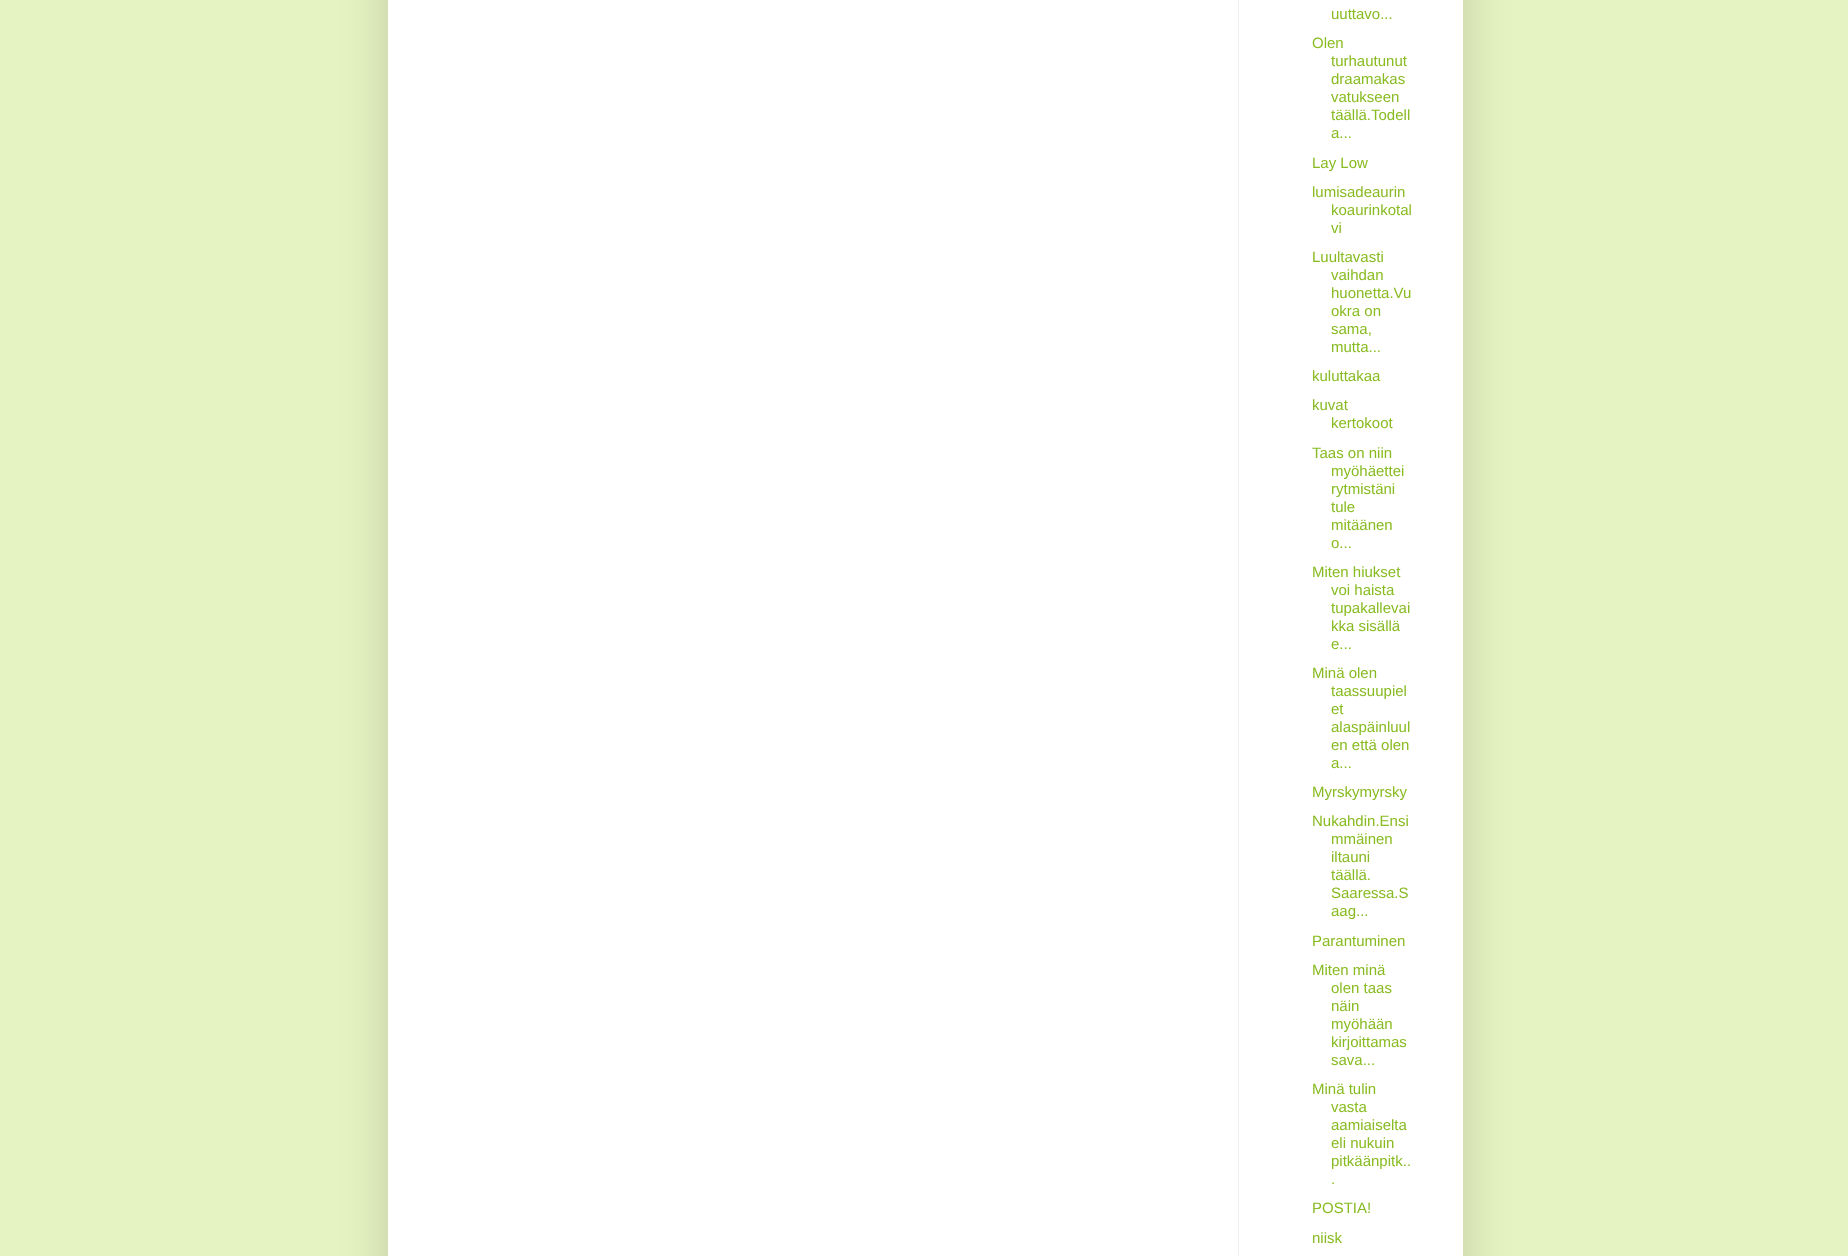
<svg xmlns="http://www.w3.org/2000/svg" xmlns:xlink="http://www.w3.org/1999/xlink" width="1848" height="1256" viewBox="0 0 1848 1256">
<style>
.cls-1{font:15px Liberation Sans;fill:#88bb21}
</style>
<rect width="100%" height="100%" fill="#e5f2c1"/>
<rect fill="#000000" fill-opacity="0.15" filter="blur(25px)" x="388" y="-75" width="1075" height="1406"/>
<rect fill="#ffffff" x="388" y="0" width="1075" height="1256"/>
<rect fill="#eeeeee" x="1238" y="0" width="1" height="1256"/>
<text class="cls-1" x="1331" y="19">uuttavo...</text>
<text class="cls-1" x="1312" y="48">Olen</text>
<text class="cls-1"><tspan x="1331" y="66">turhautunut</tspan><tspan x="1331" y="84">draamakas</tspan><tspan x="1331" y="102">vatukseen</tspan><tspan x="1331" y="120">täällä.Todell</tspan><tspan x="1331" y="138">a...</tspan></text>
<text class="cls-1"><tspan x="1312" y="168">Lay Low</tspan><tspan x="1312" y="197">lumisadeaurin</tspan></text>
<text class="cls-1"><tspan x="1331" y="215">koaurinkotal</tspan><tspan x="1331" y="233">vi</tspan></text>
<text class="cls-1" x="1312" y="262">Luultavasti</text>
<text class="cls-1"><tspan x="1331" y="280">vaihdan</tspan><tspan x="1331" y="298">huonetta.Vu</tspan><tspan x="1331" y="316">okra on</tspan><tspan x="1331" y="334">sama,</tspan><tspan x="1331" y="352">mutta...</tspan></text>
<text class="cls-1"><tspan x="1312" y="381">kuluttakaa</tspan><tspan x="1312" y="410">kuvat</tspan></text>
<text class="cls-1" x="1331" y="428">kertokoot</text>
<text class="cls-1" x="1312" y="458">Taas on niin</text>
<text class="cls-1"><tspan x="1331" y="476">myöhäettei</tspan><tspan x="1331" y="494">rytmistäni</tspan><tspan x="1331" y="512">tule</tspan><tspan x="1331" y="530">mitäänen</tspan><tspan x="1331" y="548">o...</tspan></text>
<text class="cls-1" x="1312" y="577">Miten hiukset</text>
<text class="cls-1"><tspan x="1331" y="595">voi haista</tspan><tspan x="1331" y="613">tupakallevai</tspan><tspan x="1331" y="631">kka sisällä</tspan><tspan x="1331" y="649">e...</tspan></text>
<text class="cls-1" x="1312" y="678">Minä olen</text>
<text class="cls-1"><tspan x="1331" y="696">taassuupiel</tspan><tspan x="1331" y="714">et</tspan><tspan x="1331" y="732">alaspäinluul</tspan><tspan x="1331" y="750">en että olen</tspan><tspan x="1331" y="768">a...</tspan></text>
<text class="cls-1"><tspan x="1312" y="797">Myrskymyrsky</tspan><tspan x="1312" y="826">Nukahdin.Ensi</tspan></text>
<text class="cls-1"><tspan x="1331" y="844">mmäinen</tspan><tspan x="1331" y="862">iltauni</tspan><tspan x="1331" y="880">täällä.</tspan><tspan x="1331" y="898">Saaressa.S</tspan><tspan x="1331" y="916">aag...</tspan></text>
<text class="cls-1"><tspan x="1312" y="946">Parantuminen</tspan><tspan x="1312" y="975">Miten minä</tspan></text>
<text class="cls-1"><tspan x="1331" y="993">olen taas</tspan><tspan x="1331" y="1011">näin</tspan><tspan x="1331" y="1029">myöhään</tspan><tspan x="1331" y="1047">kirjoittamas</tspan><tspan x="1331" y="1065">sava...</tspan></text>
<text class="cls-1" x="1312" y="1094">Minä tulin</text>
<text class="cls-1"><tspan x="1331" y="1112">vasta</tspan><tspan x="1331" y="1130">aamiaiselta</tspan><tspan x="1331" y="1148">eli nukuin</tspan><tspan x="1331" y="1166">pitkäänpitk..</tspan><tspan x="1331" y="1184">.</tspan></text>
<text class="cls-1" x="1312" y="1213">POSTIA!</text>
<text class="cls-1" x="1312" y="1243">niisk</text>
</svg>
